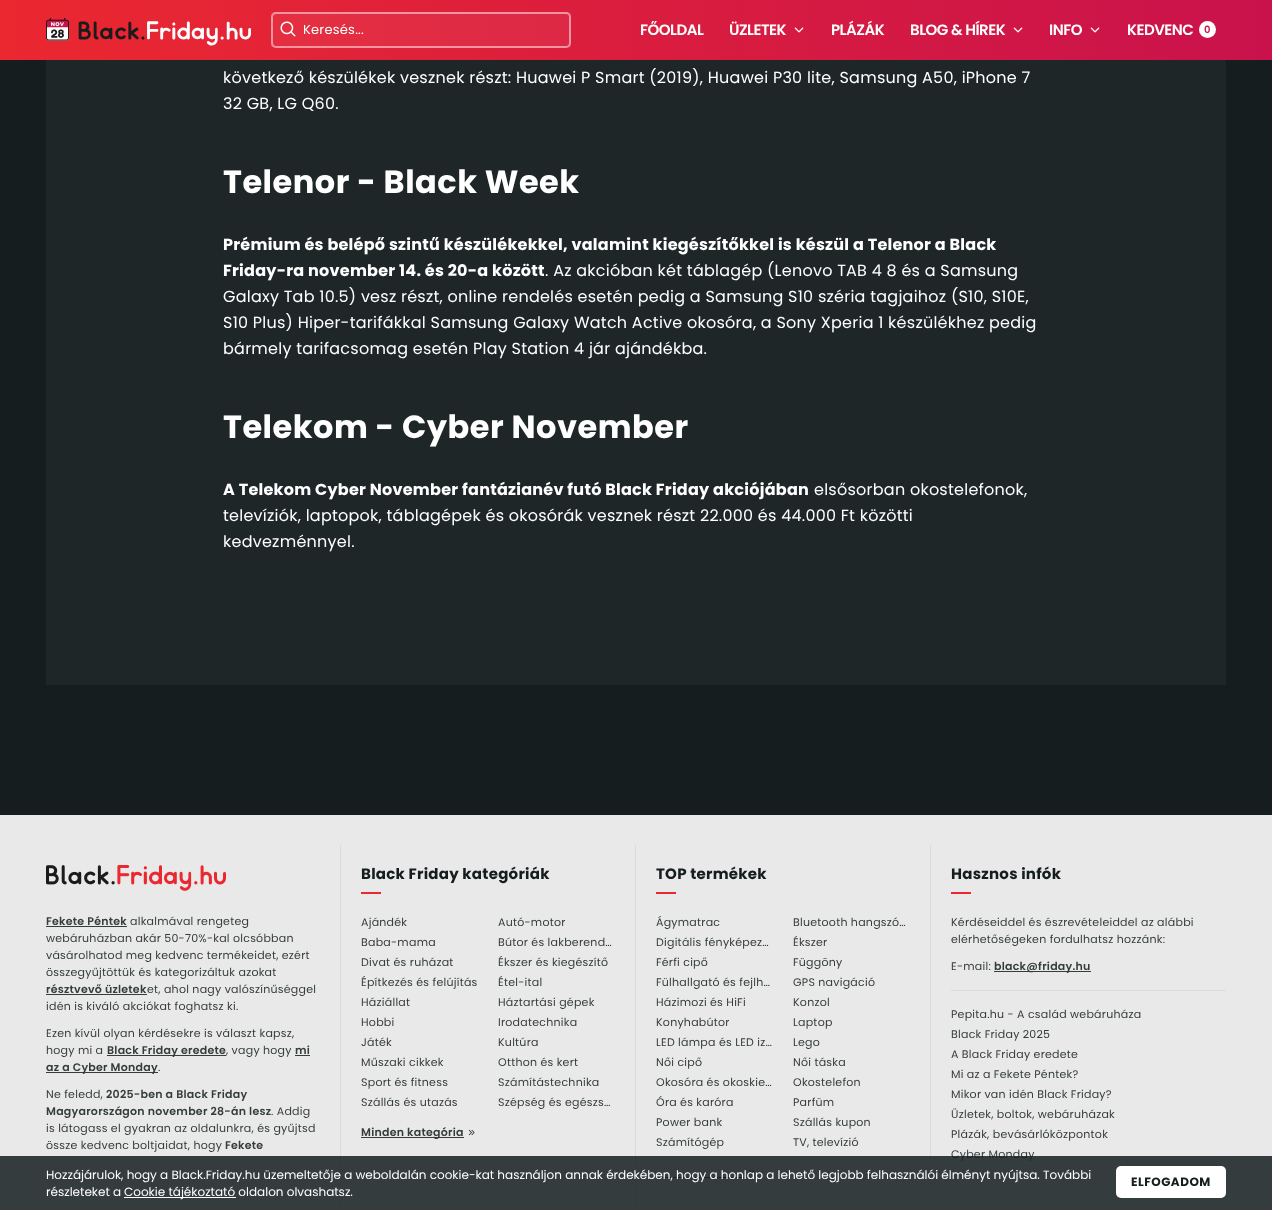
<svg xmlns="http://www.w3.org/2000/svg" xmlns:xlink="http://www.w3.org/1999/xlink" width="1272" height="1210" viewBox="0 0 1272 1210">
<style>
.cls-1{font:13px Poppins;letter-spacing:0.25px;fill:#ffffff}
.cls-2{font:600 15px Poppins;letter-spacing:-0.5px;fill:#ffffff}
.cls-3{font:600 10px Poppins;fill:#c9124c}
.cls-4{font:16px Poppins;letter-spacing:0.25px;fill:#ffffff}
.cls-5{font:bold 32px Poppins;letter-spacing:0.5px;fill:#ffffff}
.cls-6{font:bold 16px Poppins;letter-spacing:0.25px;fill:#ffffff}
.cls-7{font:600 11px Poppins;letter-spacing:0.25px;fill:#353c3c}
.cls-8{font:11px Poppins;letter-spacing:0.25px;fill:#353c3c}
.cls-9{font:bold 15px Poppins;letter-spacing:0.25px;fill:#151d1e}
.cls-10{font:12px Poppins;fill:#ffffff}
.cls-11{font:bold 12px Poppins;letter-spacing:0.5px;fill:#151d1e}
</style>
<defs>
<linearGradient id="g1" gradientUnits="userSpaceOnUse" x1="0" y1="30" x2="1272" y2="30"><stop offset="0" stop-color="#eb2830"/><stop offset="1" stop-color="#c9124c"/></linearGradient>
</defs>
<rect width="100%" height="100%" fill="#151d1e"/>
<rect fill="url(#g1)" x="0" y="0" width="1272" height="60"/>
<image xlink:href="image0.png" x="46" y="18" width="205" height="28"/>
<rect fill="#ffffff" fill-opacity="0.05" x="271" y="12" width="300" height="36"/>
<rect fill="none" stroke="#ffffff" stroke-opacity="0.5" stroke-width="2" x="272" y="13" width="298" height="34" rx="4"/>
<image xlink:href="image1.png" x="280" y="21" width="16" height="16"/>
<image xlink:href="image2.png" x="794" y="27" width="10" height="6"/>
<image xlink:href="image3.png" x="1013" y="27" width="10" height="6"/>
<image xlink:href="image4.png" x="1090" y="27" width="10" height="6"/>
<circle fill="#ffffff" cx="1207.5" cy="29.5" r="8.5"/>
<rect fill="#1e2627" x="46" y="60" width="1180" height="625"/>
<rect fill="#e9e9e9" x="0" y="815" width="1272" height="395"/>
<rect fill="#dadbdb" x="340" y="845" width="1" height="365"/>
<image xlink:href="image5.png" x="46" y="865" width="180" height="26"/>
<rect fill="#353c3c" x="46" y="926" width="81" height="1"/>
<rect fill="#353c3c" x="46" y="994" width="101" height="1"/>
<rect fill="#353c3c" x="107" y="1055" width="119" height="1"/>
<rect fill="#353c3c" x="295" y="1055" width="15" height="1"/>
<rect fill="#353c3c" x="46" y="1072" width="112" height="1"/>
<rect fill="#dadbdb" x="635" y="845" width="1" height="365"/>
<rect fill="#eb2830" x="361" y="892" width="20" height="2"/>
<rect fill="#353c3c" x="361" y="1137" width="103" height="1"/>
<image xlink:href="image6.png" x="468" y="1129" width="7" height="7"/>
<rect fill="#dadbdb" x="930" y="845" width="1" height="365"/>
<rect fill="#eb2830" x="656" y="892" width="20" height="2"/>
<image xlink:href="image6.png" x="748" y="1169" width="7" height="7"/>
<rect fill="#353c3c" x="656" y="1177" width="88" height="1"/>
<rect fill="#eb2830" x="951" y="892" width="20" height="2"/>
<rect fill="#353c3c" x="994" y="971" width="97" height="1"/>
<rect fill="#dadbdb" x="951" y="990" width="275" height="1"/>
<text class="cls-1" x="303" y="34">Keresés...</text>
<text class="cls-2" x="640" y="35">FŐOLDAL</text>
<text class="cls-2" x="729" y="35">ÜZLETEK</text>
<text class="cls-2" x="831" y="35">PLÁZÁK</text>
<text class="cls-2" x="910" y="35">BLOG &amp; HÍREK</text>
<text class="cls-2" x="1049" y="35">INFO</text>
<text class="cls-2" x="1127" y="35">KEDVENC</text>
<text class="cls-3" x="1204" y="33">0</text>
<text class="cls-4"><tspan x="223" y="83">következő készülékek vesznek részt: Huawei P Smart (2019), Huawei P30 lite, Samsung A50, iPhone 7</tspan><tspan x="223" y="109">32 GB, LG Q60.</tspan></text>
<text class="cls-5" x="223" y="193">Telenor - Black Week</text>
<text class="cls-6"><tspan x="223" y="250">Prémium és belépő szintű készülékekkel, valamint kiegészítőkkel is készül a Telenor a Black</tspan><tspan x="223" y="276">Friday-ra november 14. és 20-a között</tspan></text>
<text class="cls-4" x="545" y="276">. Az akcióban két táblagép (Lenovo TAB 4 8 és a Samsung</text>
<text class="cls-4"><tspan x="223" y="302">Galaxy Tab 10.5) vesz részt, online rendelés esetén pedig a Samsung S10 széria tagjaihoz (S10, S10E,</tspan><tspan x="223" y="328">S10 Plus) Hiper-tarifákkal Samsung Galaxy Watch Active okosóra, a Sony Xperia 1 készülékhez pedig</tspan><tspan x="223" y="354">bármely tarifacsomag esetén Play Station 4 jár ajándékba.</tspan></text>
<text class="cls-5" x="223" y="438">Telekom - Cyber November</text>
<text class="cls-6" x="223" y="495">A Telekom Cyber November fantázianév futó Black Friday akciójában</text>
<text class="cls-4" x="814" y="495">elsősorban okostelefonok,</text>
<text class="cls-4"><tspan x="223" y="521">televíziók, laptopok, táblagépek és okosórák vesznek részt 22.000 és 44.000 Ft közötti</tspan><tspan x="223" y="547">kedvezménnyel.</tspan></text>
<text class="cls-7" x="46" y="925">Fekete Péntek</text>
<text class="cls-8" x="130" y="925">alkalmával rengeteg</text>
<text class="cls-8"><tspan x="46" y="942">webáruházban akár 50-70%-kal olcsóbban</tspan><tspan x="46" y="959">vásárolhatod meg kedvenc termékeidet, ezért</tspan><tspan x="46" y="976">összegyűjtöttük és kategorizáltuk azokat</tspan></text>
<text class="cls-7" x="46" y="993">résztvevő üzletek</text>
<text class="cls-8" x="147" y="993">et, ahol nagy valószínűséggel</text>
<text class="cls-8" x="46" y="1010">idén is kiváló akciókat foghatsz ki.</text>
<text class="cls-8"><tspan x="46" y="1037">Ezen kívül olyan kérdésekre is választ kapsz,</tspan><tspan x="46" y="1054">hogy mi a</tspan></text>
<text class="cls-7" x="107" y="1054">Black Friday eredete</text>
<text class="cls-8" x="226" y="1054">, vagy hogy</text>
<text class="cls-7" x="295" y="1054">mi</text>
<text class="cls-7" x="46" y="1071">az a Cyber Monday</text>
<text class="cls-8" x="158" y="1071">.</text>
<text class="cls-8" x="46" y="1098">Ne feledd,</text>
<text class="cls-7" x="106" y="1098">2025-ben a Black Friday</text>
<text class="cls-7" x="46" y="1115">Magyarországon november 28-án lesz</text>
<text class="cls-8" x="271" y="1115">. Addig</text>
<text class="cls-8"><tspan x="46" y="1132">is látogass el gyakran az oldalunkra, és gyűjtsd</tspan><tspan x="46" y="1149">össze kedvenc boltjaidat, hogy</tspan></text>
<text class="cls-7" x="225" y="1149">Fekete</text>
<text class="cls-9" x="361" y="879">Black Friday kategóriák</text>
<text class="cls-8" x="361" y="926">Ajándék</text>
<text class="cls-8" x="498" y="926">Autó-motor</text>
<text class="cls-8" x="361" y="946">Baba-mama</text>
<text class="cls-8" x="498" y="946">Bútor és lakberend…</text>
<text class="cls-8" x="361" y="966">Divat és ruházat</text>
<text class="cls-8" x="498" y="966">Ékszer és kiegészítő</text>
<text class="cls-8" x="361" y="986">Építkezés és felújítás</text>
<text class="cls-8" x="498" y="986">Étel-ital</text>
<text class="cls-8" x="361" y="1006">Háziállat</text>
<text class="cls-8" x="498" y="1006">Háztartási gépek</text>
<text class="cls-8" x="361" y="1026">Hobbi</text>
<text class="cls-8" x="498" y="1026">Irodatechnika</text>
<text class="cls-8" x="361" y="1046">Játék</text>
<text class="cls-8" x="498" y="1046">Kultúra</text>
<text class="cls-8" x="361" y="1066">Műszaki cikkek</text>
<text class="cls-8" x="498" y="1066">Otthon és kert</text>
<text class="cls-8" x="361" y="1086">Sport és fitness</text>
<text class="cls-8" x="498" y="1086">Számítástechnika</text>
<text class="cls-8" x="361" y="1106">Szállás és utazás</text>
<text class="cls-8" x="498" y="1106">Szépség és egészs…</text>
<text class="cls-7" x="361" y="1136">Minden kategória</text>
<text class="cls-9" x="656" y="879">TOP termékek</text>
<text class="cls-8" x="656" y="926">Ágymatrac</text>
<text class="cls-8" x="793" y="926">Bluetooth hangszó…</text>
<text class="cls-8" x="656" y="946">Digitális fényképez…</text>
<text class="cls-8" x="793" y="946">Ékszer</text>
<text class="cls-8" x="656" y="966">Férfi cipő</text>
<text class="cls-8" x="793" y="966">Függöny</text>
<text class="cls-8" x="656" y="986">Fülhallgató és fejlh…</text>
<text class="cls-8" x="793" y="986">GPS navigáció</text>
<text class="cls-8" x="656" y="1006">Házimozi és HiFi</text>
<text class="cls-8" x="793" y="1006">Konzol</text>
<text class="cls-8" x="656" y="1026">Konyhabútor</text>
<text class="cls-8" x="793" y="1026">Laptop</text>
<text class="cls-8" x="656" y="1046">LED lámpa és LED iz…</text>
<text class="cls-8" x="793" y="1046">Lego</text>
<text class="cls-8" x="656" y="1066">Női cipő</text>
<text class="cls-8" x="793" y="1066">Női táska</text>
<text class="cls-8" x="656" y="1086">Okosóra és okoskie…</text>
<text class="cls-8" x="793" y="1086">Okostelefon</text>
<text class="cls-8" x="656" y="1106">Óra és karóra</text>
<text class="cls-8" x="793" y="1106">Parfüm</text>
<text class="cls-8" x="656" y="1126">Power bank</text>
<text class="cls-8" x="793" y="1126">Szállás kupon</text>
<text class="cls-8" x="656" y="1146">Számítógép</text>
<text class="cls-8" x="793" y="1146">TV, televízió</text>
<text class="cls-9" x="951" y="879">Hasznos infók</text>
<text class="cls-8"><tspan x="951" y="926">Kérdéseiddel és észrevételeiddel az alábbi</tspan><tspan x="951" y="943">elérhetőségeken fordulhatsz hozzánk:</tspan></text>
<text class="cls-8" x="951" y="970">E-mail:</text>
<text class="cls-7" x="994" y="970">black@friday.hu</text>
<text class="cls-8"><tspan x="951" y="1018">Pepita.hu - A család webáruháza</tspan><tspan x="951" y="1038">Black Friday 2025</tspan><tspan x="951" y="1058">A Black Friday eredete</tspan><tspan x="951" y="1078">Mi az a Fekete Péntek?</tspan><tspan x="951" y="1098">Mikor van idén Black Friday?</tspan><tspan x="951" y="1118">Üzletek, boltok, webáruházak</tspan><tspan x="951" y="1138">Plázák, bevásárlóközpontok</tspan><tspan x="951" y="1158">Cyber Monday</tspan></text>
<rect fill="#151d1e" fill-opacity="0.85" x="0" y="1156" width="1272" height="54"/>
<text class="cls-10"><tspan x="46" y="1179">Hozzájárulok, hogy a Black.Friday.hu üzemeltetője a weboldalán cookie-kat használjon annak érdekében, hogy a honlap a lehető legjobb felhasználói élményt nyújtsa. További</tspan><tspan x="46" y="1196">részleteket a</tspan></text>
<rect fill="#ffffff" x="124" y="1197" width="112" height="1"/>
<text class="cls-10" x="124" y="1196">Cookie tájékoztató oldalon olvashatsz.</text>
<rect fill="#ffffff" x="1116" y="1166" width="110" height="32" rx="5"/>
<text class="cls-11" x="1131" y="1186">ELFOGADOM</text>
</svg>
